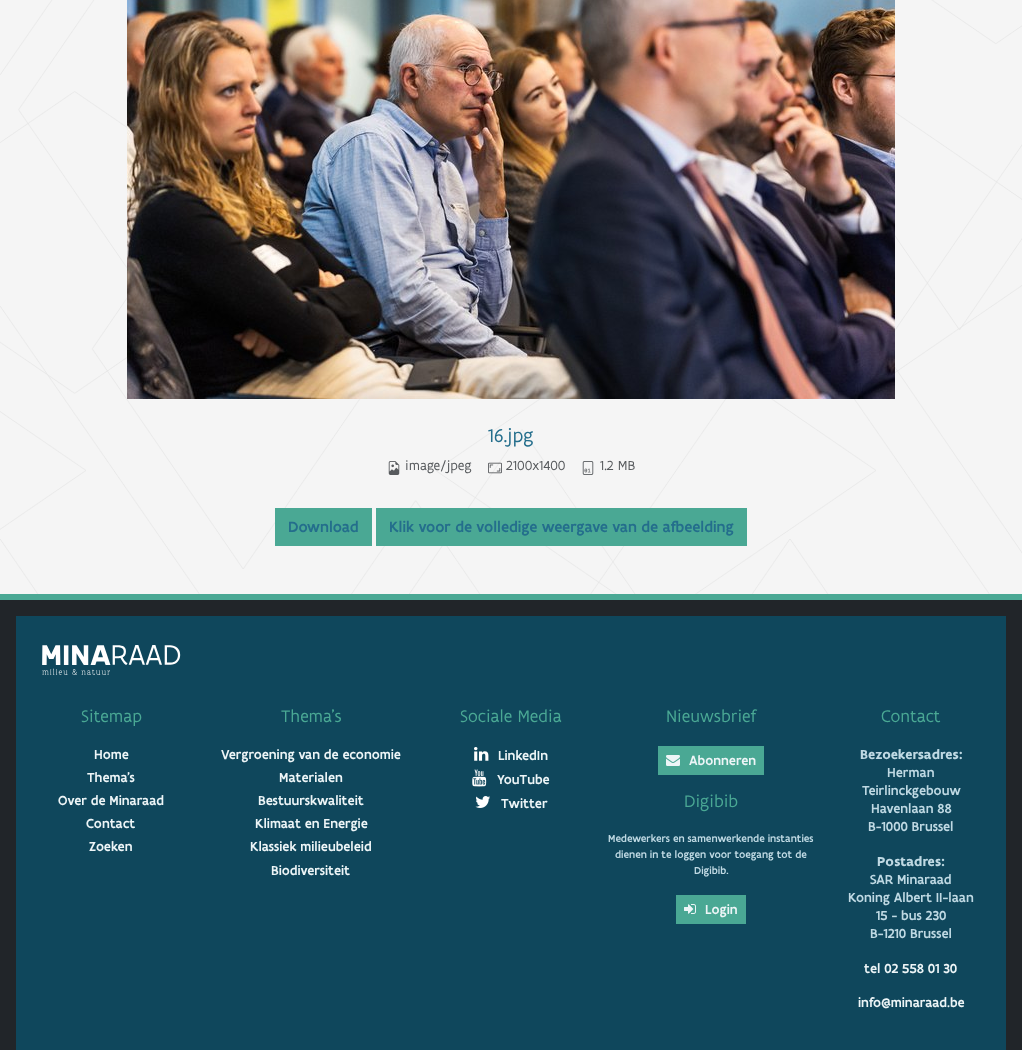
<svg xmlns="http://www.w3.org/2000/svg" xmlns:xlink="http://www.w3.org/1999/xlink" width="1022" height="1050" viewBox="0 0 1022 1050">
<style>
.cls-1{font:20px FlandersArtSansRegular;fill:#246e8c}
.cls-2{font:14px FlandersArtSansRegular;fill:#56595c}
.cls-3{font:500 16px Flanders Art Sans;fill:#246e8c}
.cls-4{font:18px FlandersArtSansRegular;fill:#4aa894}
.cls-5{font:500 14px Flanders Art Sans;fill:#edf5f7}
.cls-6{font:500 11px Flanders Art Sans;fill:#bfd9e3}
.cls-7{font:bold 14px Flanders Art Sans;fill:#bfd9e3}
.cls-8{font:500 14px Flanders Art Sans;fill:#bfd9e3}
</style>
<rect width="100%" height="100%" fill="#f5f5f5"/>
<image xlink:href="image0.png" x="0" y="0" width="1022" height="594"/>
<image xlink:href="image1.png" x="127" y="0" width="768" height="399"/>
<image xlink:href="image2.png" x="388" y="461" width="12" height="14"/>
<image xlink:href="image3.png" x="488" y="462" width="14" height="12"/>
<image xlink:href="image4.png" x="582" y="461" width="12" height="14"/>
<rect fill="#4aa894" x="275" y="508" width="97" height="38"/>
<rect fill="#4aa894" x="376" y="508" width="371" height="38"/>
<rect fill="#212529" x="0" y="600" width="1022" height="450"/>
<rect fill="#4aa894" x="0" y="594" width="1022" height="6"/>
<rect fill="#0f475c" x="16" y="616" width="990" height="434"/>
<image xlink:href="image5.png" x="42" y="645" width="139" height="30"/>
<image xlink:href="image6.png" x="474" y="747" width="15" height="14"/>
<image xlink:href="image7.png" x="472" y="769" width="15" height="18"/>
<image xlink:href="image8.png" x="475" y="796" width="15" height="12"/>
<rect fill="#4aa894" x="658" y="746" width="106" height="29"/>
<image xlink:href="image9.png" x="666" y="755" width="14" height="11"/>
<rect fill="#4aa894" x="676" y="895" width="70" height="29"/>
<image xlink:href="image10.png" x="684" y="904" width="12" height="10"/>
<text class="cls-1" x="488" y="442">16.jpg</text>
<text class="cls-2" x="405" y="470">image/jpeg</text>
<text class="cls-2" x="506" y="470">2100x1400</text>
<text class="cls-2" x="600" y="470">1.2 MB</text>
<text class="cls-3" x="288" y="532">Download</text>
<text class="cls-3" x="389" y="532">Klik voor de volledige weergave van de afbeelding</text>
<text class="cls-4" x="81" y="722">Sitemap</text>
<text class="cls-5" x="94" y="759">Home</text>
<text class="cls-5" x="87" y="782">Thema's</text>
<text class="cls-5" x="58" y="805">Over de Minaraad</text>
<text class="cls-5" x="86" y="828">Contact</text>
<text class="cls-5" x="89" y="851">Zoeken</text>
<text class="cls-4" x="281" y="722">Thema’s</text>
<text class="cls-5" x="221" y="759">Vergroening van de economie</text>
<text class="cls-5" x="279" y="782">Materialen</text>
<text class="cls-5" x="258" y="805">Bestuurskwaliteit</text>
<text class="cls-5" x="255" y="828">Klimaat en Energie</text>
<text class="cls-5" x="250" y="851">Klassiek milieubeleid</text>
<text class="cls-5" x="271" y="875">Biodiversiteit</text>
<text class="cls-4" x="460" y="722">Sociale Media</text>
<text class="cls-5" x="498" y="760">LinkedIn</text>
<text class="cls-5" x="497" y="784">YouTube</text>
<text class="cls-5" x="501" y="808">Twitter</text>
<text class="cls-4" x="666" y="722">Nieuwsbrief</text>
<text class="cls-5" x="689" y="765">Abonneren</text>
<text class="cls-4" x="684" y="807">Digibib</text>
<text class="cls-6" x="608" y="842">Medewerkers en samenwerkende instanties</text>
<text class="cls-6" x="615" y="858">dienen in te loggen voor toegang tot de</text>
<text class="cls-6" x="694" y="874">Digibib.</text>
<text class="cls-5" x="705" y="914">Login</text>
<text class="cls-4" x="881" y="722">Contact</text>
<text class="cls-7" x="860" y="759">Bezoekersadres:</text>
<text class="cls-8" x="887" y="777">Herman</text>
<text class="cls-8" x="862" y="795">Teirlinckgebouw</text>
<text class="cls-8" x="871" y="813">Havenlaan 88</text>
<text class="cls-8" x="868" y="831">B-1000 Brussel</text>
<text class="cls-7" x="877" y="866">Postadres:</text>
<text class="cls-8" x="870" y="884">SAR Minaraad</text>
<text class="cls-8" x="848" y="902">Koning Albert II-laan</text>
<text class="cls-8" x="876" y="920">15 - bus 230</text>
<text class="cls-8" x="870" y="938">B-1210 Brussel</text>
<text class="cls-5" x="864" y="973">tel 02 558 01 30</text>
<text class="cls-5" x="858" y="1007">info@minaraad.be</text>
</svg>
